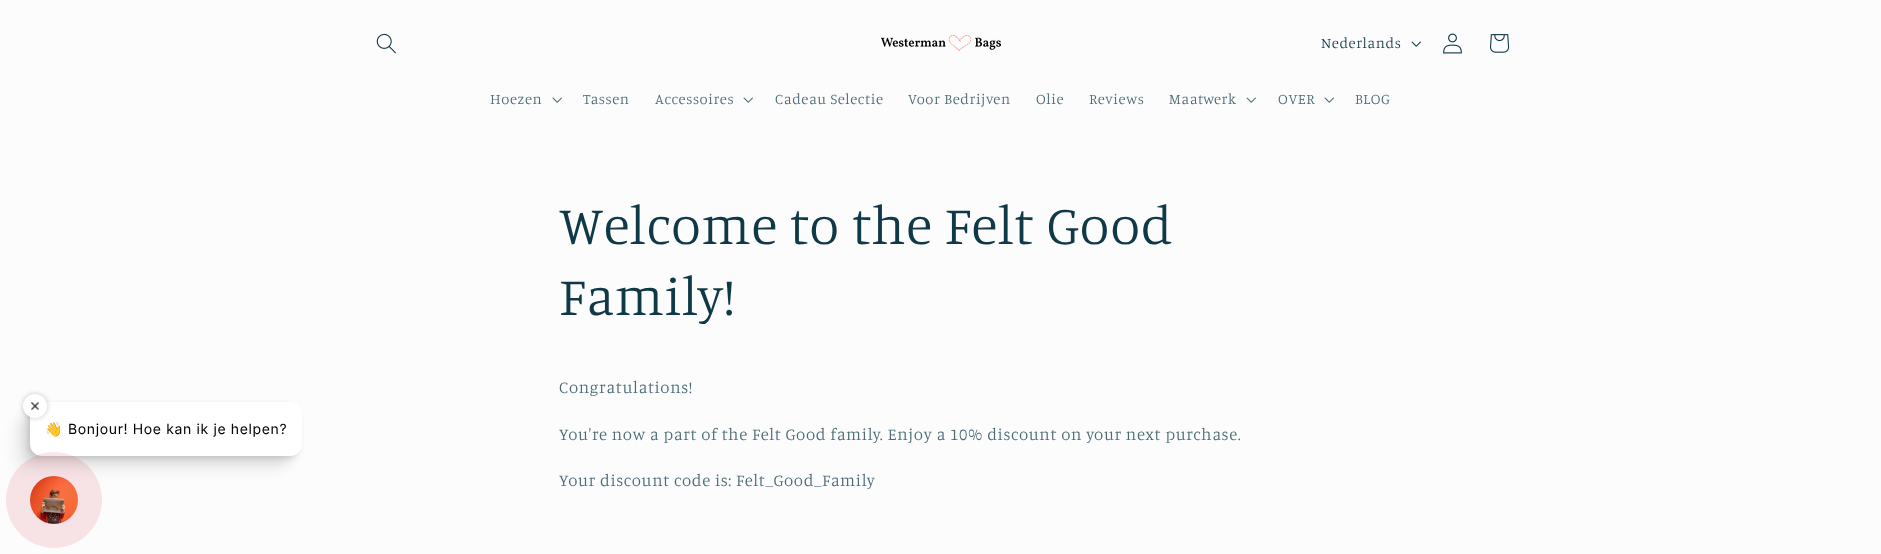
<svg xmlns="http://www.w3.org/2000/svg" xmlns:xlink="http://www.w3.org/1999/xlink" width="1881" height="554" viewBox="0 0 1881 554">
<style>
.cls-1{font:300 14.75px Manuale;letter-spacing:0.63px;fill:#103948}
.cls-2{font:300 14.75px Manuale;letter-spacing:0.63px;fill:#4b6a75}
.cls-3{font:14px Noto Color Emoji;letter-spacing:0.63px;fill:#000000}
.cls-4{font:14px Inter;letter-spacing:0.63px;fill:#000000}
.cls-5{font:300 54.6px Manuale;letter-spacing:0.63px;fill:#103948}
.cls-6{font:300 16.8px Manuale;letter-spacing:0.63px;fill:#4b6a75}
</style>
<rect width="100%" height="100%" fill="#fcfcfc"/>
<image xlink:href="image0.png" x="376" y="33" width="20" height="21"/>
<image xlink:href="image1.png" x="881" y="35" width="120" height="16"/>
<image xlink:href="image2.png" x="1411" y="41" width="10" height="6"/>
<image xlink:href="image3.png" x="1443" y="33" width="19" height="21"/>
<image xlink:href="image4.png" x="1490" y="34" width="20" height="19"/>
<image xlink:href="image5.png" x="552" y="97" width="10" height="6"/>
<image xlink:href="image5.png" x="743" y="97" width="10" height="6"/>
<image xlink:href="image5.png" x="1246" y="97" width="10" height="6"/>
<image xlink:href="image5.png" x="1324" y="97" width="10" height="6"/>
<rect fill="#000000" fill-opacity="0.1" filter="blur(2.5px)" x="28" y="404" width="272" height="54" rx="12"/>
<rect fill="#000000" fill-opacity="0.09" filter="blur(5px)" x="23" y="409" width="272" height="54" rx="12"/>
<rect fill="#000000" fill-opacity="0.05" filter="blur(6.5px)" x="15" y="417" width="272" height="54" rx="12"/>
<rect fill="#ffffff" x="30" y="402" width="272" height="54" rx="12"/>
<rect fill="#000000" fill-opacity="0.15" filter="blur(2px)" x="22" y="393" width="26" height="26" rx="13"/>
<circle fill="#ffffff" cx="35" cy="406" r="12"/>
<image xlink:href="image6.png" x="31" y="402" width="8" height="8"/>
<image xlink:href="image7.png" x="30" y="476" width="48" height="48"/>
<circle fill="#d0021b" fill-opacity="0.1" cx="54" cy="500" r="48"/>
<text class="cls-1" x="1321" y="48">Nederlands</text>
<text class="cls-2" x="490" y="104">Hoezen</text>
<text class="cls-2" x="583" y="104">Tassen</text>
<text class="cls-2" x="655" y="104">Accessoires</text>
<text class="cls-2" x="775" y="104">Cadeau Selectie</text>
<text class="cls-2" x="908" y="104">Voor Bedrijven</text>
<text class="cls-2" x="1036" y="104">Olie</text>
<text class="cls-2" x="1089" y="104">Reviews</text>
<text class="cls-2" x="1169" y="104">Maatwerk</text>
<text class="cls-2" x="1278" y="104">OVER</text>
<text class="cls-2" x="1355" y="104">BLOG</text>
<text class="cls-3" x="45" y="434">👋</text>
<text class="cls-4" x="68" y="434">Bonjour! Hoe kan ik je helpen?</text>
<text class="cls-5"><tspan x="559" y="244">Welcome to the Felt Good</tspan><tspan x="559" y="315">Family!</tspan></text>
<text class="cls-6" x="559" y="393">Congratulations!</text>
<text class="cls-6" x="559" y="440">You're now a part of the Felt Good family. Enjoy a 10% discount on your next purchase.</text>
<text class="cls-6" x="559" y="486">Your discount code is: Felt_Good_Family</text>
</svg>
